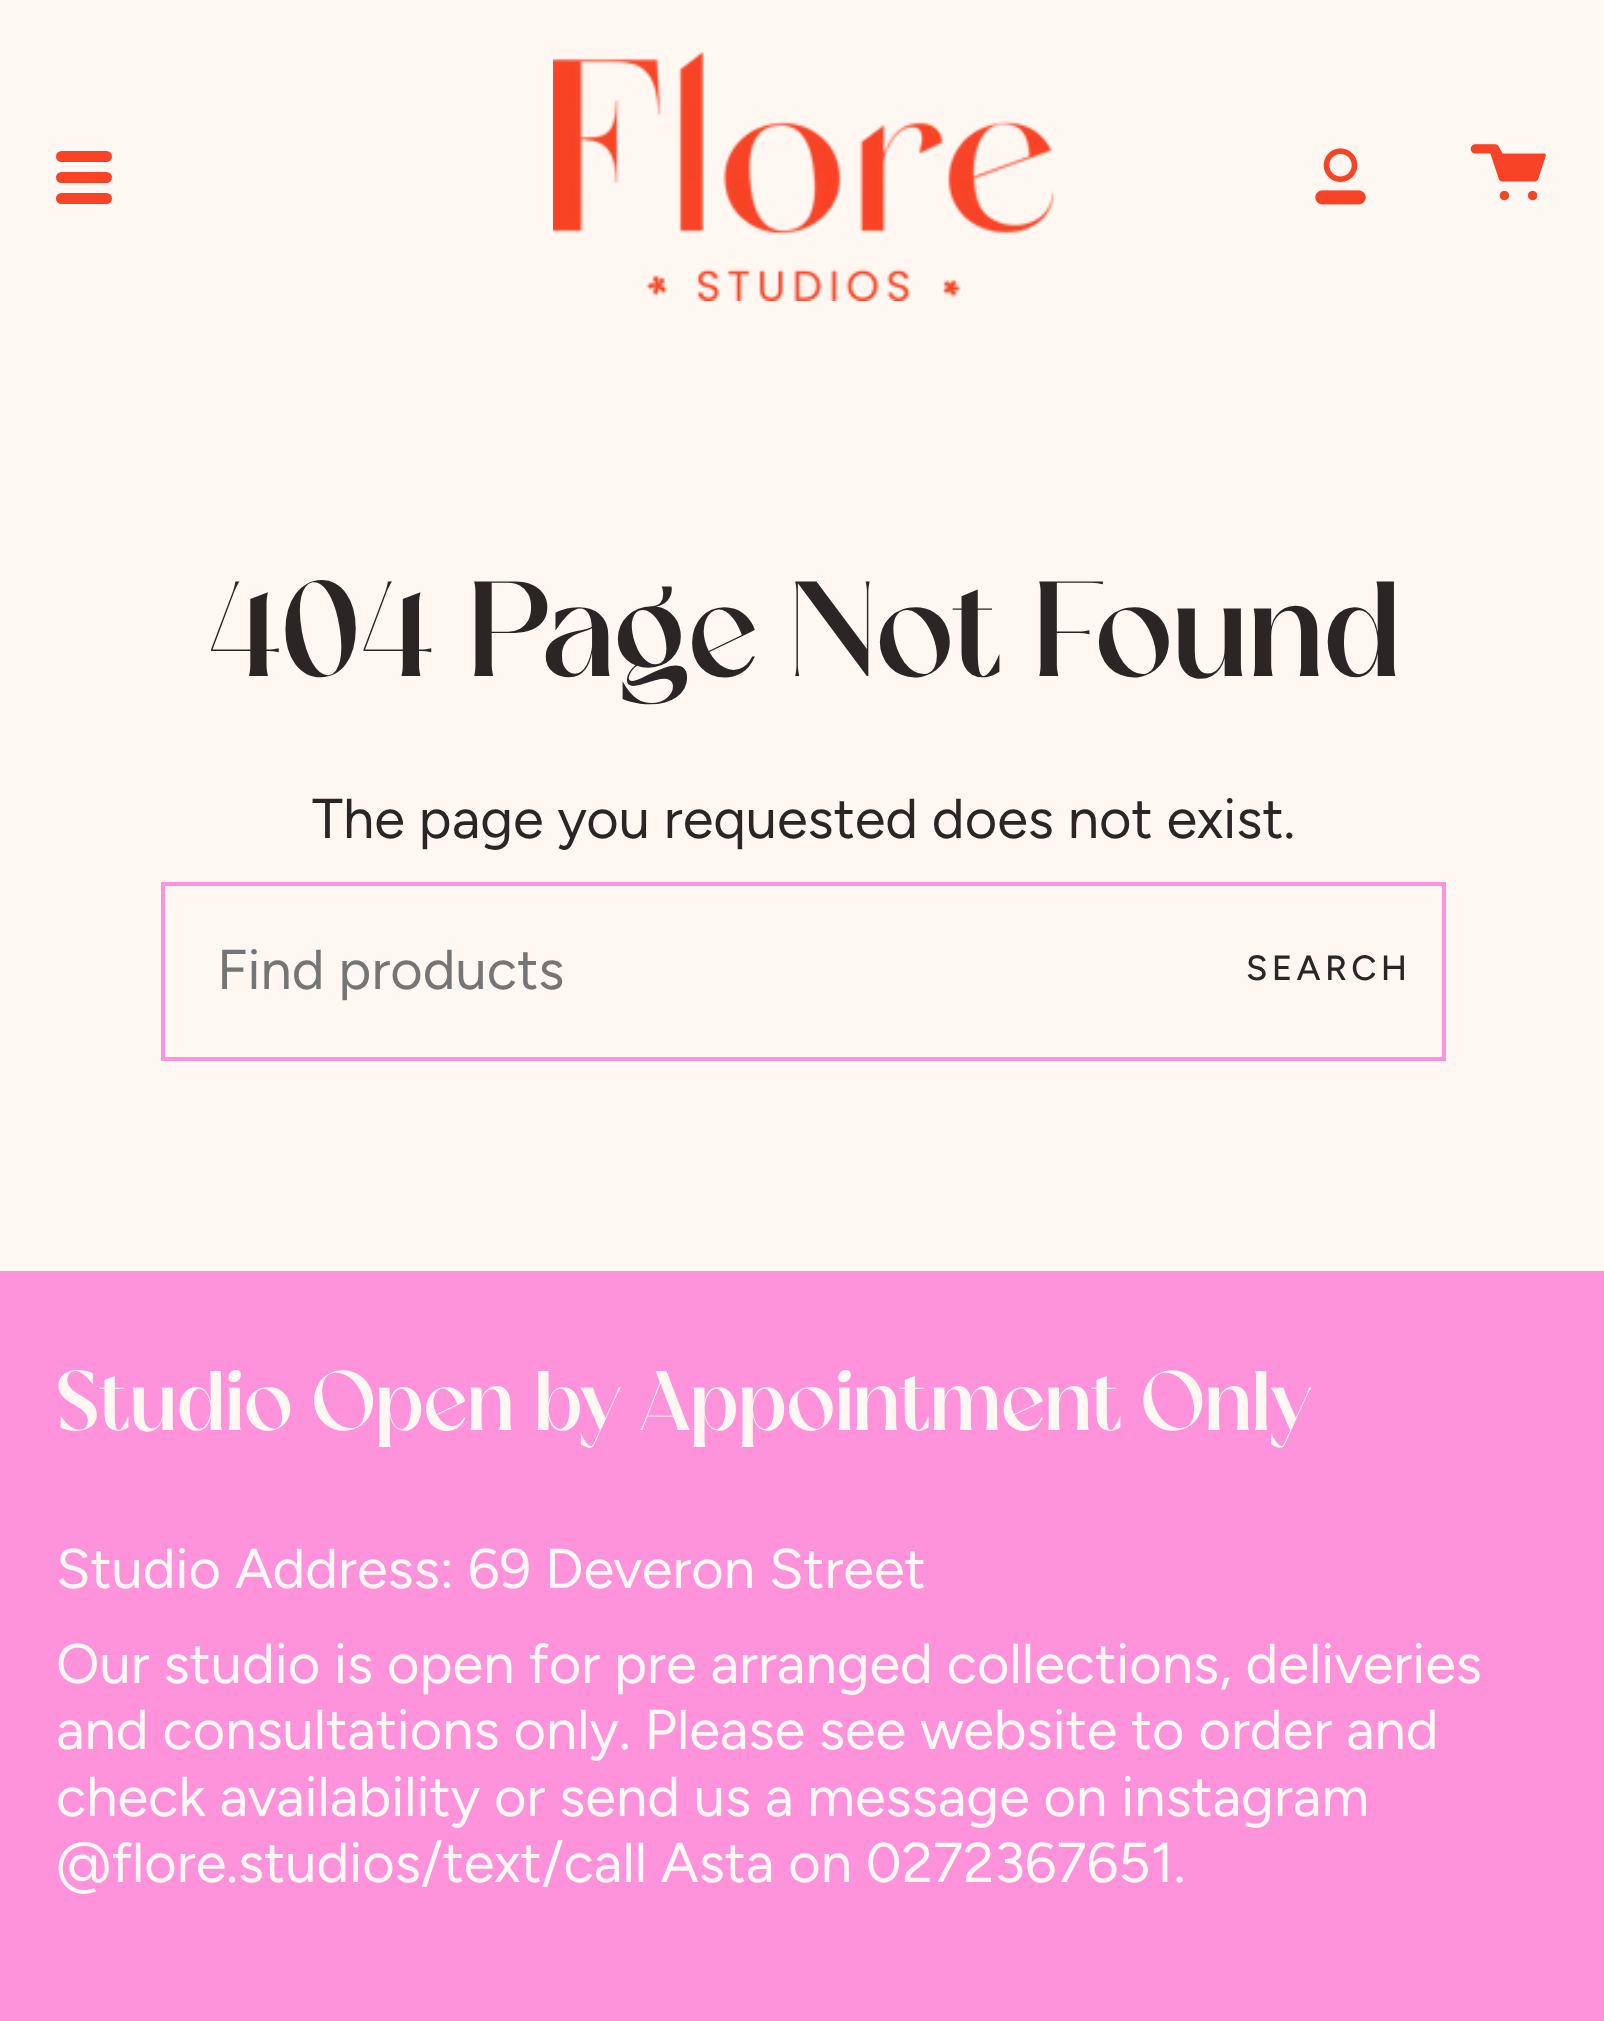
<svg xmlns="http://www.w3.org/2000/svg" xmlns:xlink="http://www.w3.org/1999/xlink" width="1604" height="2021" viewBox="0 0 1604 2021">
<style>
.cls-1{font:128.75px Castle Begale;fill:#2b2625}
.cls-2{font:56px Figtree;fill:#2b2625}
.cls-3{font:56px Figtree;fill:#757575}
.cls-4{font:500 35px Figtree;letter-spacing:4.25px;fill:#2b2625}
.cls-5{font:80.5px Castle Begale;fill:#fff8f2}
.cls-6{font:56px Figtree;fill:#fff8f2}
</style>
<rect width="100%" height="100%" fill="#fff8f2"/>
<rect fill="#f84326" x="56" y="151" width="56" height="11" rx="5.5"/>
<rect fill="#f84326" x="56" y="172" width="56" height="11" rx="5.5"/>
<rect fill="#f84326" x="56" y="193" width="56" height="11" rx="5.5"/>
<image xlink:href="image0.png" x="553" y="52" width="501" height="249"/>
<image xlink:href="image1.png" x="1315" y="148" width="51" height="57"/>
<image xlink:href="image2.png" x="1470" y="144" width="76" height="57"/>
<rect fill="none" stroke="#ff93db" stroke-width="4" x="163" y="884" width="1281" height="175"/>
<rect fill="#ff93db" x="0" y="1271" width="1604" height="750"/>
<text class="cls-1" x="206" y="676">404 Page Not Found</text>
<text class="cls-2" x="312" y="838">The page you requested does not exist.</text>
<text class="cls-3" x="217" y="989">Find products</text>
<text class="cls-4" x="1246" y="980">SEARCH</text>
<text class="cls-5" x="56" y="1430">Studio Open by Appointment Only</text>
<text class="cls-6"><tspan x="56" y="1588">Studio Address: 69 Deveron Street</tspan><tspan x="56" y="1683">Our studio is open for pre arranged collections, deliveries</tspan><tspan x="56" y="1749">and consultations only. Please see website to order and</tspan><tspan x="56" y="1816">check availability or send us a message on instagram</tspan><tspan x="56" y="1882">@flore.studios/text/call Asta on 0272367651.</tspan></text>
</svg>
